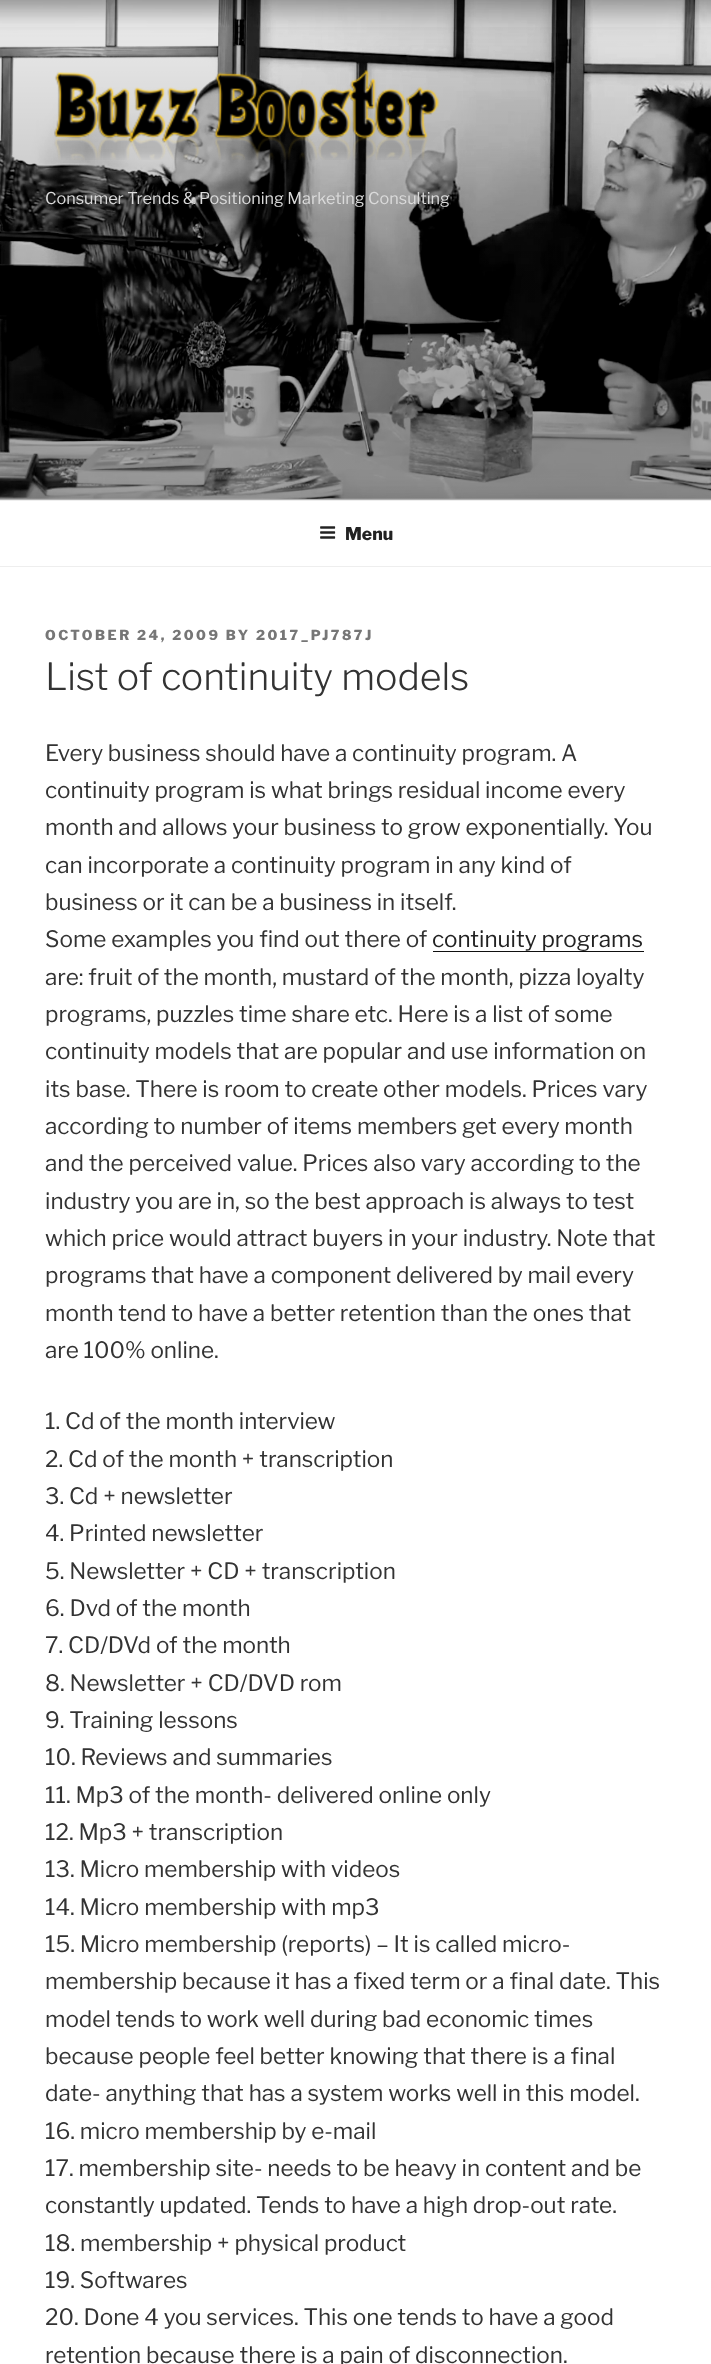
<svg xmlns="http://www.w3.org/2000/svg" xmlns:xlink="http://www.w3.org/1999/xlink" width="711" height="2364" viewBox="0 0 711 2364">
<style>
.cls-1{font:100 16.25px 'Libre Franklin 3';fill:#dadada}
.cls-2{font:100 17.5px Libre Franklin;fill:#222222}
.cls-3{font:100 13.75px Libre Franklin;letter-spacing:2.5px;fill:#767676}
.cls-4{font:100 37.5px 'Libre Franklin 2';fill:#333333}
.cls-5{font:100 22.5px 'Libre Franklin 3';fill:#333333}
.cls-6{font:100 22.5px 'Libre Franklin 3';fill:#222222}
</style>
<defs>
<linearGradient id="g1" gradientUnits="userSpaceOnUse" x1="356" y1="0" x2="356" y2="500"><stop offset="0" stop-color="#000000" stop-opacity="0"/><stop offset="0.75" stop-color="#000000" stop-opacity="0.3"/><stop offset="1" stop-color="#000000" stop-opacity="0.3"/></linearGradient>
</defs>
<rect width="100%" height="100%" fill="#ffffff"/>
<rect fill="#fafafa" x="0" y="498" width="711" height="2"/>
<image xlink:href="image0.png" x="0" y="0" width="711" height="499"/>
<rect fill="url(#g1)" x="0" y="27" width="711" height="473"/>
<image xlink:href="image1.png" x="54" y="69" width="385" height="91"/>
<rect fill="#eeeeee" x="0" y="500" width="711" height="1"/>
<rect fill="#eeeeee" x="0" y="566" width="711" height="1"/>
<image xlink:href="image2.png" x="320" y="526" width="16" height="13"/>
<rect fill="#0f0f0f" x="433" y="951" width="211" height="1"/>
<text class="cls-1" x="45" y="204">Consumer Trends &amp; Positioning Marketing Consulting</text>
<text class="cls-2" x="345" y="540">Menu</text>
<text class="cls-3" x="45" y="640">OCTOBER 24, 2009 BY 2017_PJ787J</text>
<text class="cls-4" x="45" y="690">List of continuity models</text>
<text class="cls-5"><tspan x="45" y="761">Every business should have a continuity program. A</tspan><tspan x="45" y="798">continuity program is what brings residual income every</tspan><tspan x="45" y="835">month and allows your business to grow exponentially. You</tspan><tspan x="45" y="873">can incorporate a continuity program in any kind of</tspan><tspan x="45" y="910">business or it can be a business in itself.</tspan><tspan x="45" y="947">Some examples you find out there of</tspan></text>
<text class="cls-6" x="432" y="947">continuity programs</text>
<text class="cls-5"><tspan x="45" y="985">are: fruit of the month, mustard of the month, pizza loyalty</tspan><tspan x="45" y="1022">programs, puzzles time share etc. Here is a list of some</tspan><tspan x="45" y="1059">continuity models that are popular and use information on</tspan><tspan x="45" y="1097">its base. There is room to create other models. Prices vary</tspan><tspan x="45" y="1134">according to number of items members get every month</tspan><tspan x="45" y="1171">and the perceived value. Prices also vary according to the</tspan><tspan x="45" y="1209">industry you are in, so the best approach is always to test</tspan><tspan x="45" y="1246">which price would attract buyers in your industry. Note that</tspan><tspan x="45" y="1283">programs that have a component delivered by mail every</tspan><tspan x="45" y="1321">month tend to have a better retention than the ones that</tspan><tspan x="45" y="1358">are 100% online.</tspan></text>
<text class="cls-5"><tspan x="45" y="1429">1. Cd of the month interview</tspan><tspan x="45" y="1467">2. Cd of the month + transcription</tspan><tspan x="45" y="1504">3. Cd + newsletter</tspan><tspan x="45" y="1541">4. Printed newsletter</tspan><tspan x="45" y="1579">5. Newsletter + CD + transcription</tspan><tspan x="45" y="1616">6. Dvd of the month</tspan><tspan x="45" y="1653">7. CD/DVd of the month</tspan><tspan x="45" y="1691">8. Newsletter + CD/DVD rom</tspan><tspan x="45" y="1728">9. Training lessons</tspan><tspan x="45" y="1765">10. Reviews and summaries</tspan><tspan x="45" y="1803">11. Mp3 of the month- delivered online only</tspan><tspan x="45" y="1840">12. Mp3 + transcription</tspan><tspan x="45" y="1877">13. Micro membership with videos</tspan><tspan x="45" y="1915">14. Micro membership with mp3</tspan><tspan x="45" y="1952">15. Micro membership (reports) – It is called micro-</tspan><tspan x="45" y="1989">membership because it has a fixed term or a final date. This</tspan><tspan x="45" y="2027">model tends to work well during bad economic times</tspan><tspan x="45" y="2064">because people feel better knowing that there is a final</tspan><tspan x="45" y="2101">date- anything that has a system works well in this model.</tspan><tspan x="45" y="2139">16. micro membership by e-mail</tspan><tspan x="45" y="2176">17. membership site- needs to be heavy in content and be</tspan><tspan x="45" y="2213">constantly updated. Tends to have a high drop-out rate.</tspan><tspan x="45" y="2251">18. membership + physical product</tspan><tspan x="45" y="2288">19. Softwares</tspan><tspan x="45" y="2325">20. Done 4 you services. This one tends to have a good</tspan><tspan x="45" y="2363">retention because there is a pain of disconnection.</tspan></text>
</svg>
